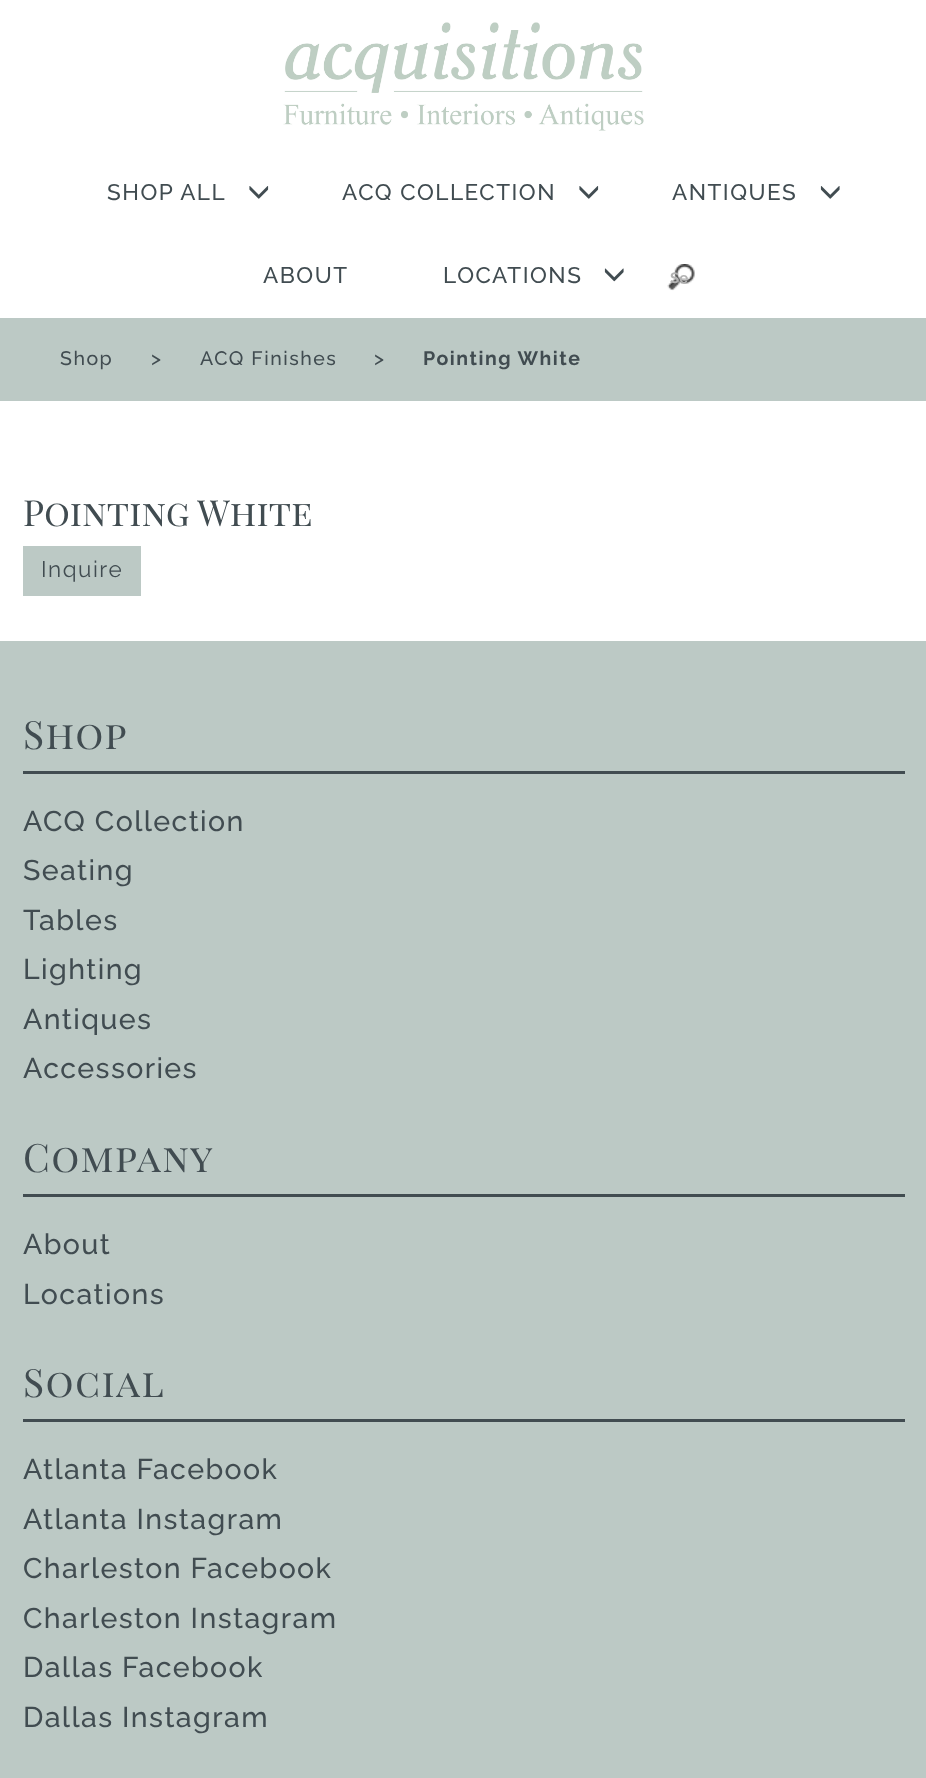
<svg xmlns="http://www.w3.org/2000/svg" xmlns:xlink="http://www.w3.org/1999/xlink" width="926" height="1778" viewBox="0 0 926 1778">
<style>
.cls-1{font:500 22.5px Raleway;letter-spacing:1.5px;fill:#414c51}
.cls-2{font:bold 15px Raleway;fill:#b3b3b3}
.cls-3{font:500 19.5px Raleway;letter-spacing:1.5px;fill:#414c51}
.cls-4{font:bold 19.5px Raleway;letter-spacing:1.5px;fill:#414c51}
.cls-5{font:36px Playfair Display SC;fill:#414c51}
.cls-6{font:22.5px Raleway;letter-spacing:1.5px;fill:#414c51}
.cls-7{font:39px Playfair Display SC;letter-spacing:1.4px;fill:#414c51}
.cls-8{font:500 28.5px Raleway;letter-spacing:1.4px;fill:#414c51}
</style>
<rect width="100%" height="100%" fill="#ffffff"/>
<image xlink:href="image0.png" x="283" y="22" width="361" height="109"/>
<image xlink:href="image1.png" x="249" y="186" width="20" height="13"/>
<image xlink:href="image1.png" x="579" y="186" width="20" height="13"/>
<image xlink:href="image2.png" x="820" y="186" width="20" height="13"/>
<image xlink:href="image3.png" x="604" y="268" width="20" height="14"/>
<image xlink:href="image4.png" x="667" y="264" width="28" height="27"/>
<rect fill="#bcc9c5" x="0" y="318" width="926" height="83"/>
<rect fill="#bcc9c5" x="23" y="546" width="118" height="50"/>
<rect fill="#bcc9c5" x="0" y="641" width="926" height="1137"/>
<rect fill="#414c51" x="23" y="771" width="882" height="3"/>
<rect fill="#414c51" x="23" y="1194" width="882" height="3"/>
<rect fill="#414c51" x="23" y="1419" width="882" height="3"/>
<text class="cls-1" x="107" y="200">SHOP ALL</text>
<text class="cls-1" x="342" y="200">ACQ COLLECTION</text>
<text class="cls-1" x="672" y="200">ANTIQUES</text>
<text class="cls-1" x="263" y="283">ABOUT</text>
<text class="cls-1" x="443" y="283">LOCATIONS</text>
<text class="cls-2" x="670" y="283">Se</text>
<text class="cls-3" x="60" y="365">Shop</text>
<text class="cls-3" x="151" y="365">&gt;</text>
<text class="cls-3" x="200" y="365">ACQ Finishes</text>
<text class="cls-3" x="374" y="365">&gt;</text>
<text class="cls-4" x="423" y="365">Pointing White</text>
<text class="cls-5" x="23" y="526">Pointing White</text>
<text class="cls-6" x="41" y="577">Inquire</text>
<text class="cls-7" x="23" y="749">Shop</text>
<text class="cls-8"><tspan x="23" y="831">ACQ Collection</tspan><tspan x="23" y="880">Seating</tspan><tspan x="23" y="930">Tables</tspan><tspan x="23" y="979">Lighting</tspan><tspan x="23" y="1029">Antiques</tspan><tspan x="23" y="1078">Accessories</tspan></text>
<text class="cls-7" x="23" y="1172">Company</text>
<text class="cls-8"><tspan x="23" y="1254">About</tspan><tspan x="23" y="1304">Locations</tspan></text>
<text class="cls-7" x="23" y="1397">Social</text>
<text class="cls-8"><tspan x="23" y="1479">Atlanta Facebook</tspan><tspan x="23" y="1529">Atlanta Instagram</tspan><tspan x="23" y="1578">Charleston Facebook</tspan><tspan x="23" y="1628">Charleston Instagram</tspan><tspan x="23" y="1677">Dallas Facebook</tspan><tspan x="23" y="1727">Dallas Instagram</tspan></text>
</svg>
